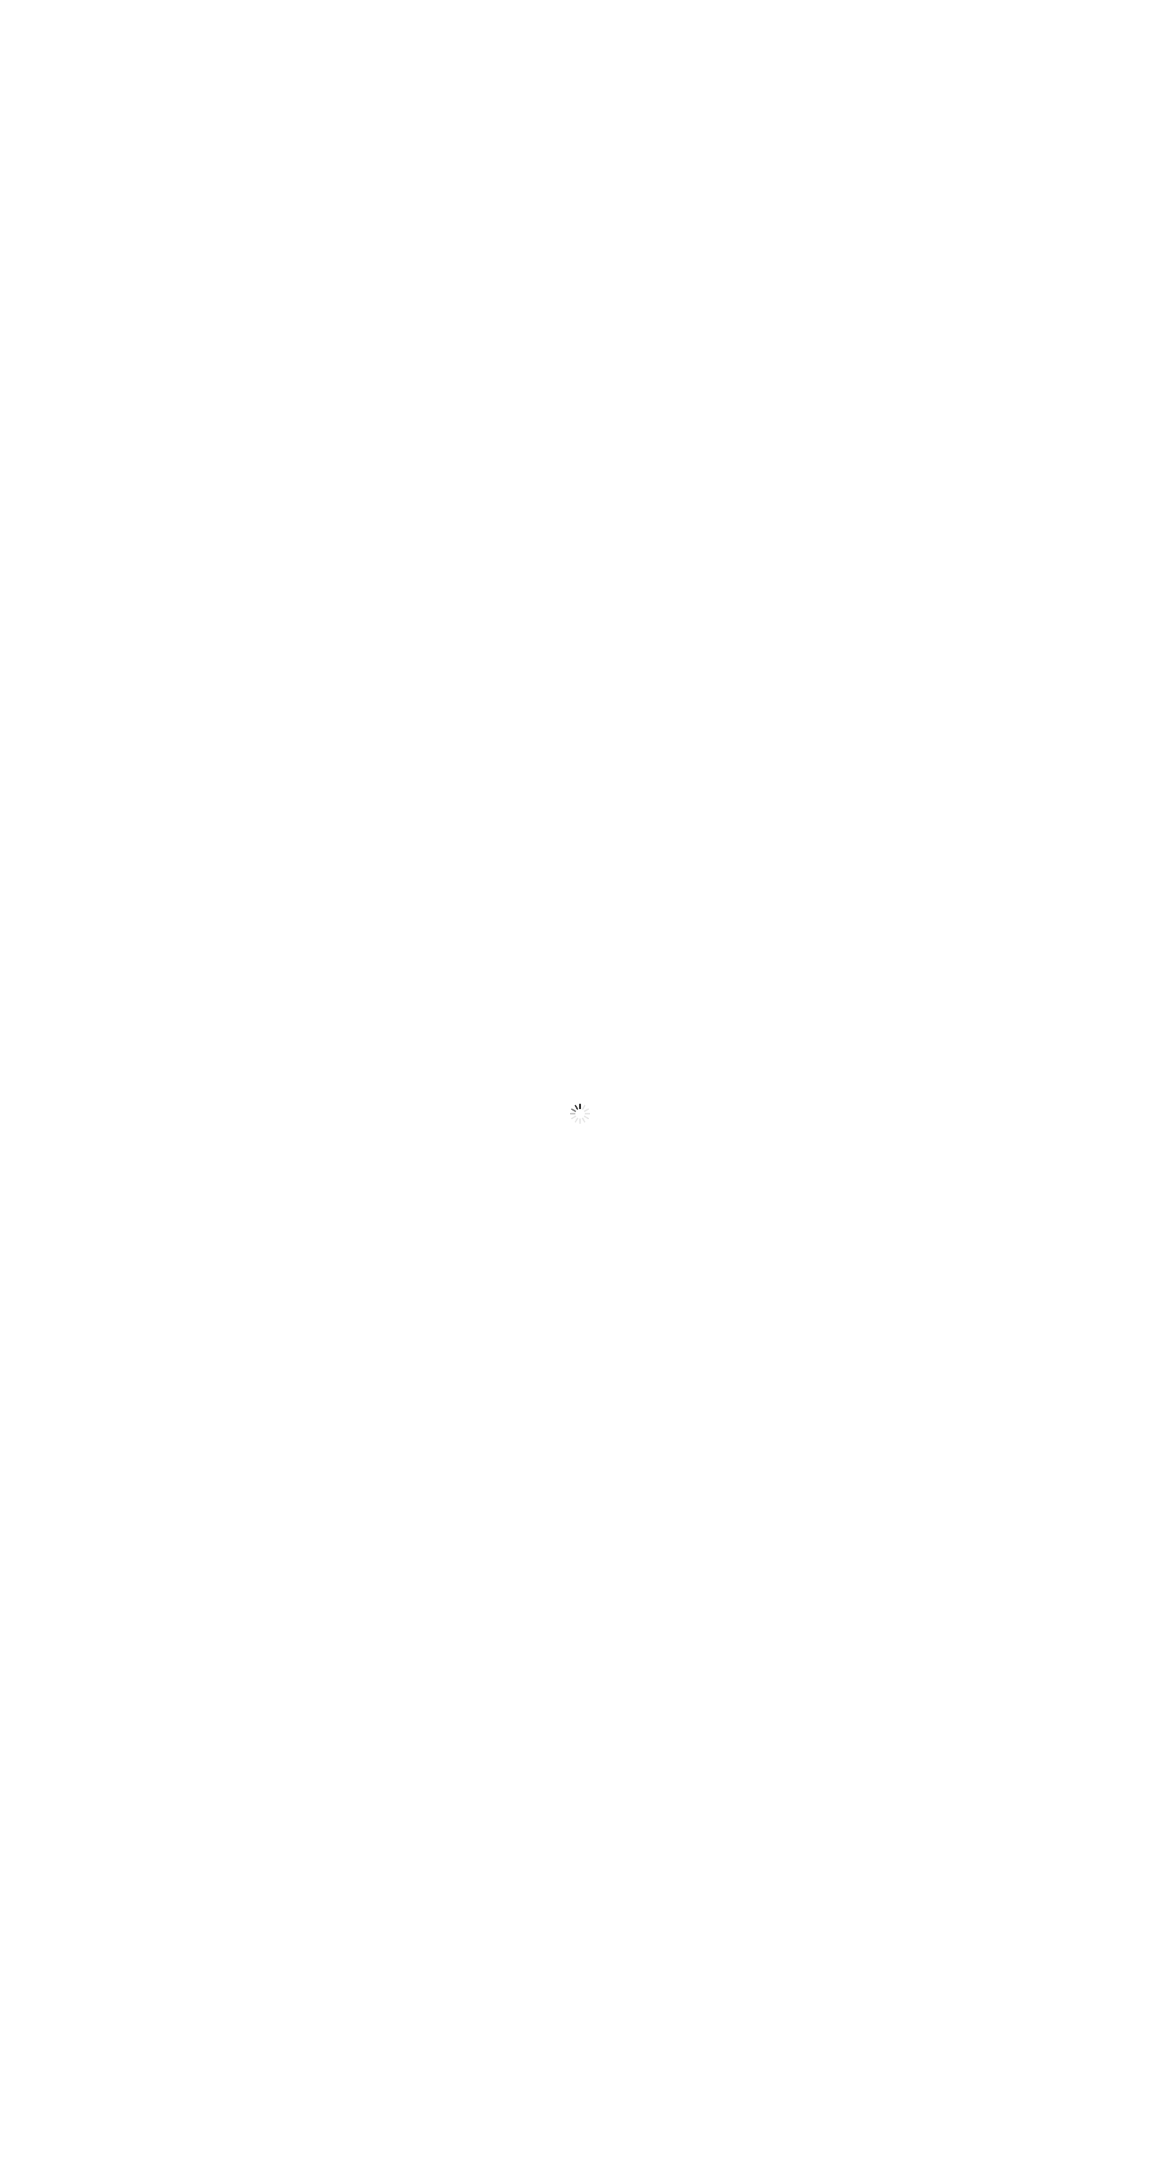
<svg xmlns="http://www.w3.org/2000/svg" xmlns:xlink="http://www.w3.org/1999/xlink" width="1160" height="2182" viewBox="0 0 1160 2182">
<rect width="100%" height="100%" fill="#ffffff"/>
<image xlink:href="image0.png" x="570" y="1103" width="20" height="21"/>
</svg>
